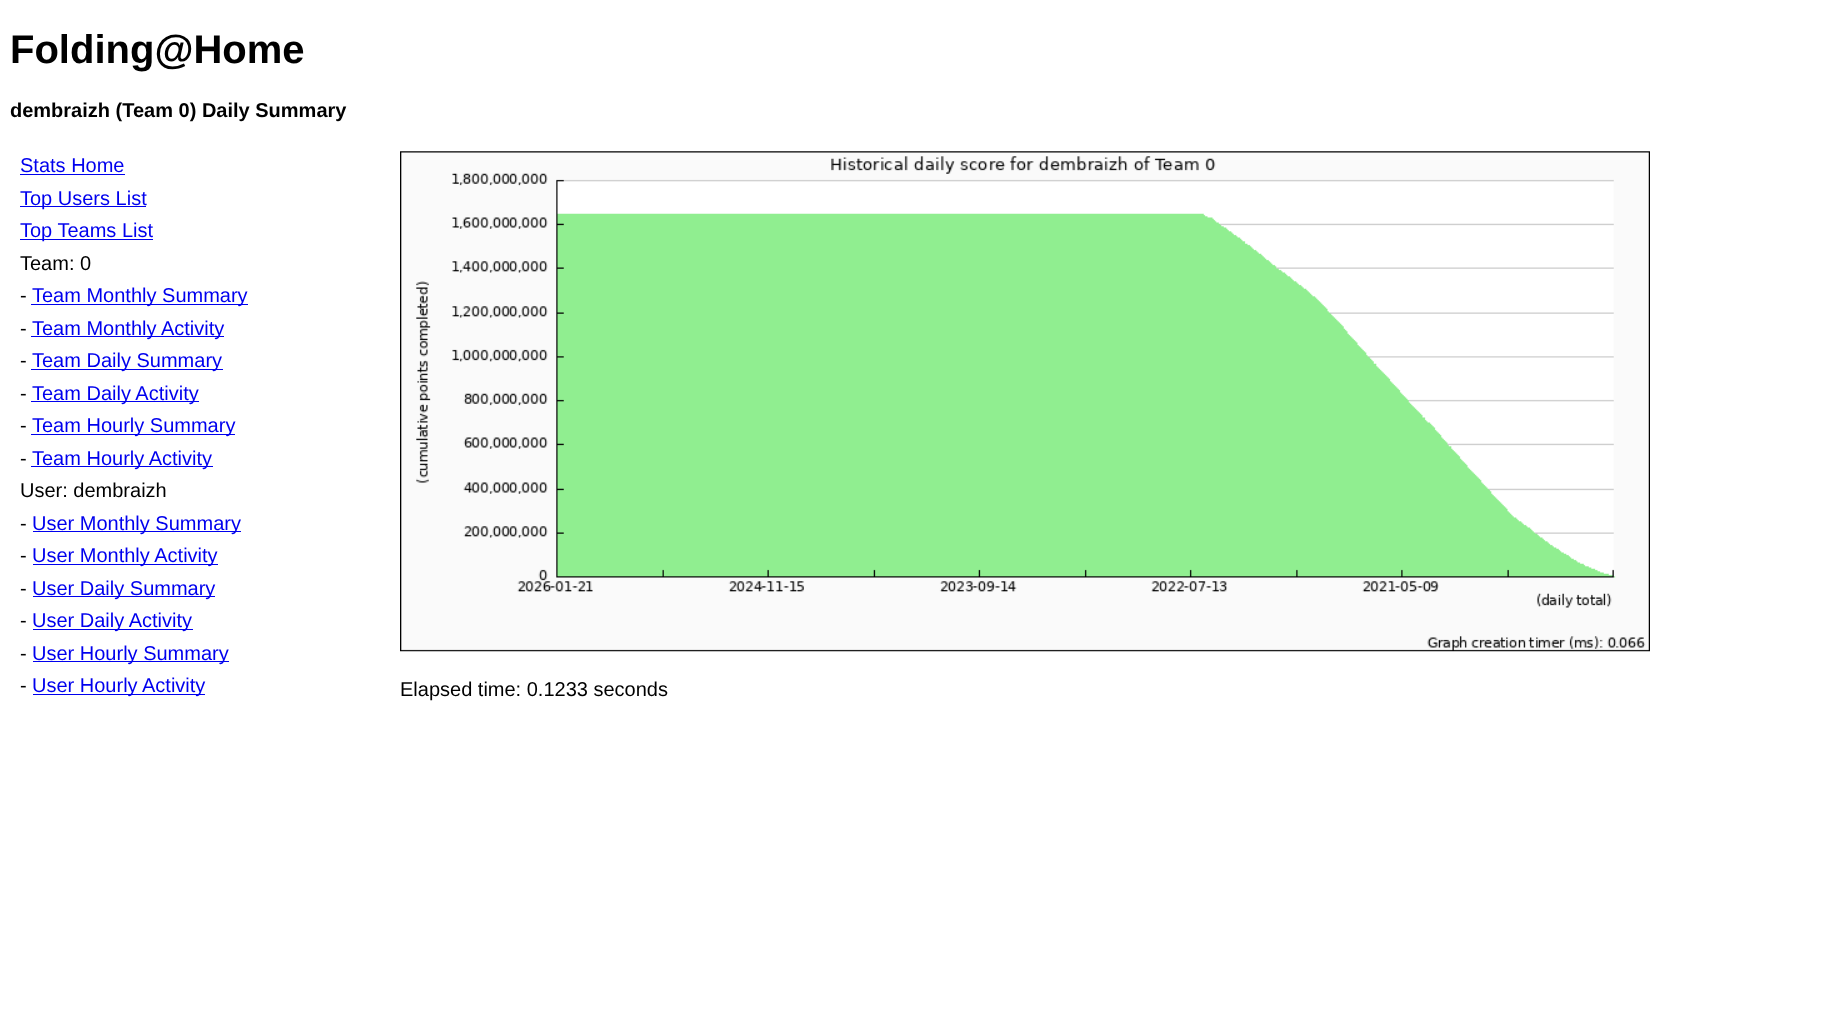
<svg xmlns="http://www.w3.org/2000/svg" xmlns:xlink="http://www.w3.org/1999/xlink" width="1836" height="1013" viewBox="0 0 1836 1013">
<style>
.cls-1{font:bold 40px Liberation Sans;fill:#000000}
.cls-2{font:bold 20px Liberation Sans;fill:#000000}
.cls-3{font:20px Liberation Sans;fill:#0000ee}
.cls-4{font:20px Liberation Sans;fill:#000000}
</style>
<rect width="100%" height="100%" fill="#ffffff"/>
<rect fill="#0000ee" x="20" y="174" width="105" height="1"/>
<rect fill="#0000ee" x="20" y="206" width="126" height="1"/>
<rect fill="#0000ee" x="20" y="239" width="133" height="1"/>
<rect fill="#0000ee" x="31" y="304" width="217" height="1"/>
<rect fill="#0000ee" x="31" y="336" width="193" height="1"/>
<rect fill="#0000ee" x="31" y="369" width="192" height="1"/>
<rect fill="#0000ee" x="31" y="401" width="168" height="1"/>
<rect fill="#0000ee" x="31" y="434" width="204" height="1"/>
<rect fill="#0000ee" x="31" y="466" width="182" height="1"/>
<rect fill="#0000ee" x="33" y="531" width="208" height="1"/>
<rect fill="#0000ee" x="33" y="564" width="185" height="1"/>
<rect fill="#0000ee" x="33" y="596" width="182" height="1"/>
<rect fill="#0000ee" x="33" y="629" width="160" height="1"/>
<rect fill="#0000ee" x="33" y="661" width="196" height="1"/>
<rect fill="#0000ee" x="33" y="694" width="172" height="1"/>
<image xlink:href="image0.png" x="400" y="151" width="1250" height="501"/>
<text class="cls-1" x="10" y="63">Folding@Home</text>
<text class="cls-2" x="10" y="117">dembraizh (Team 0) Daily Summary</text>
<text class="cls-3"><tspan x="20" y="172">Stats Home</tspan><tspan x="20" y="205">Top Users List</tspan><tspan x="20" y="237">Top Teams List</tspan></text>
<text class="cls-4"><tspan x="20" y="270">Team: 0</tspan><tspan x="20" y="302">-</tspan></text>
<text class="cls-3" x="32" y="302">Team Monthly Summary</text>
<text class="cls-4" x="20" y="335">-</text>
<text class="cls-3" x="32" y="335">Team Monthly Activity</text>
<text class="cls-4" x="20" y="367">-</text>
<text class="cls-3" x="32" y="367">Team Daily Summary</text>
<text class="cls-4" x="20" y="400">-</text>
<text class="cls-3" x="32" y="400">Team Daily Activity</text>
<text class="cls-4" x="20" y="432">-</text>
<text class="cls-3" x="32" y="432">Team Hourly Summary</text>
<text class="cls-4" x="20" y="465">-</text>
<text class="cls-3" x="32" y="465">Team Hourly Activity</text>
<text class="cls-4"><tspan x="20" y="497">User: dembraizh</tspan><tspan x="20" y="530">-</tspan></text>
<text class="cls-3" x="32" y="530">User Monthly Summary</text>
<text class="cls-4" x="20" y="562">-</text>
<text class="cls-3" x="32" y="562">User Monthly Activity</text>
<text class="cls-4" x="20" y="595">-</text>
<text class="cls-3" x="32" y="595">User Daily Summary</text>
<text class="cls-4" x="20" y="627">-</text>
<text class="cls-3" x="32" y="627">User Daily Activity</text>
<text class="cls-4" x="20" y="660">-</text>
<text class="cls-3" x="32" y="660">User Hourly Summary</text>
<text class="cls-4" x="20" y="692">-</text>
<text class="cls-3" x="32" y="692">User Hourly Activity</text>
<text class="cls-4" x="400" y="696">Elapsed time: 0.1233 seconds</text>
</svg>
